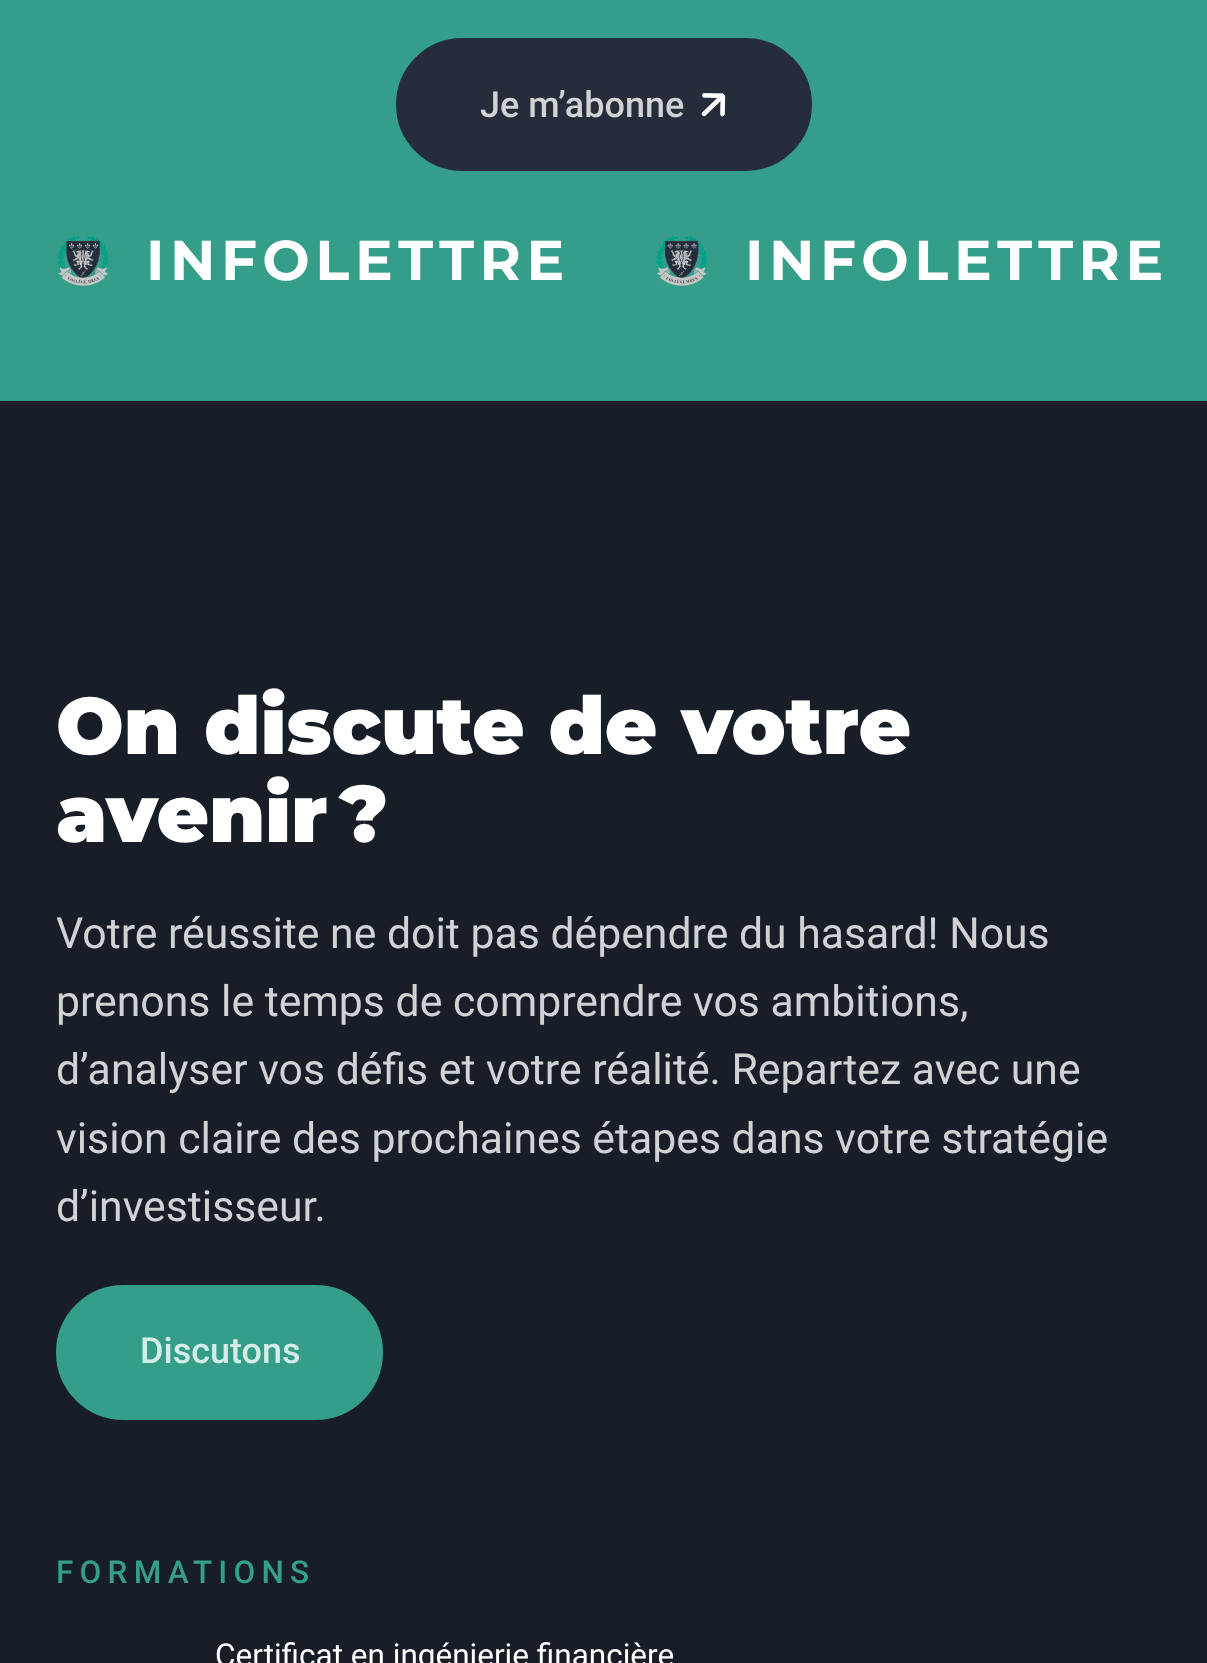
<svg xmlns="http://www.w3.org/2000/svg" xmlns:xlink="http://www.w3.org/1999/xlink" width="1207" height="1663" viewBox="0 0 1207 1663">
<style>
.cls-1{font:500 36px Roboto;fill:#d1d2d4}
.cls-2{font:bold 56.25px Montserrat;letter-spacing:5.6px;fill:#ffffff}
.cls-3{font:900 80px Montserrat;fill:#ffffff}
.cls-4{font:42.75px Roboto;fill:#d1d2d4}
.cls-5{font:500 36px Roboto;fill:#d6ece7}
.cls-6{font:500 31.5px Roboto;letter-spacing:6.25px;fill:#349e89}
.cls-7{font:31.5px Roboto;fill:#ffffff}
</style>
<rect width="100%" height="100%" fill="#181e28"/>
<rect fill="#349e89" x="0" y="0" width="1207" height="401"/>
<rect fill="#252d3a" stroke="#252d3a" stroke-width="5" x="398.5" y="40.5" width="411" height="128" rx="64"/>
<image xlink:href="image0.png" x="701" y="93" width="25" height="24"/>
<image xlink:href="image1.png" x="57" y="235" width="52" height="51"/>
<image xlink:href="image2.png" x="656" y="235" width="52" height="51"/>
<rect fill="#349e89" stroke="#349e89" stroke-width="5" x="58.5" y="1287.5" width="322" height="130" rx="65"/>
<text class="cls-1" x="480" y="117">Je m’abonne</text>
<text class="cls-2" x="146" y="280">INFOLETTRE</text>
<text class="cls-2" x="745" y="280">INFOLETTRE</text>
<text class="cls-3"><tspan x="56" y="754">On discute de votre</tspan><tspan x="56" y="842">avenir ?</tspan></text>
<text class="cls-4"><tspan x="56" y="948">Votre réussite ne doit pas dépendre du hasard! Nous</tspan><tspan x="56" y="1016">prenons le temps de comprendre vos ambitions,</tspan><tspan x="56" y="1084">d’analyser vos défis et votre réalité. Repartez avec une</tspan><tspan x="56" y="1153">vision claire des prochaines étapes dans votre stratégie</tspan><tspan x="56" y="1221">d’investisseur.</tspan></text>
<text class="cls-5" x="140" y="1363">Discutons</text>
<text class="cls-6" x="56" y="1583">FORMATIONS</text>
<text class="cls-7" x="215" y="1666">Certificat en ingénierie financière</text>
</svg>
